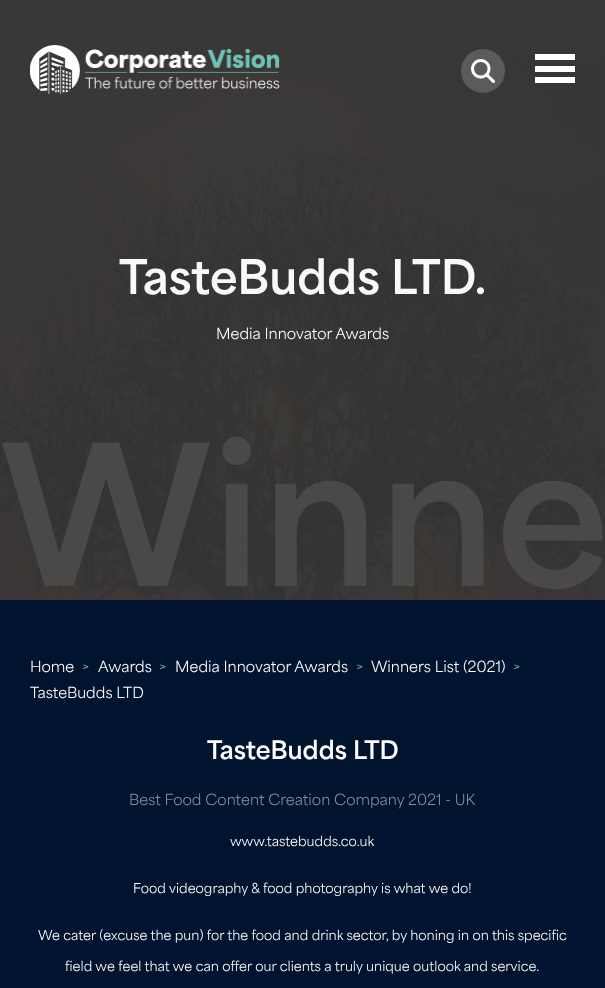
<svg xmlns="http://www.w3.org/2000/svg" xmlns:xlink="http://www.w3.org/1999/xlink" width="605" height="988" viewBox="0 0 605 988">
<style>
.cls-1{font:bold 44.75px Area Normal;fill:#f9f9f9}
.cls-2{font:14.4px Area Normal;fill:#ffffff}
.cls-3{font:bold 184px Area Normal;fill:#4a4948}
.cls-4{font:14.4px Area Normal;fill:#5fc5ba}
.cls-5{font:bold 24px Area Normal;fill:#ffffff}
.cls-6{font:14.4px Area Normal;fill:#828d9c}
.cls-7{font:12.8px Area Normal;fill:#ffffff}
</style>
<rect width="100%" height="100%" fill="#ffffff"/>
<image xlink:href="image2.png" x="0" y="0" width="605" height="600"/>
<rect fill="#000000" fill-opacity="0.75" x="0" y="0" width="605" height="600"/>
<image xlink:href="image0.png" x="30" y="45" width="250" height="49"/>
<circle fill="#5c5b5b" cx="483" cy="71" r="22"/>
<image xlink:href="image1.png" x="471" y="59" width="24" height="24"/>
<rect fill="#ffffff" x="535" y="54" width="40" height="6"/>
<rect fill="#ffffff" x="535" y="66" width="40" height="6"/>
<rect fill="#ffffff" x="535" y="77" width="40" height="6"/>
<rect fill="#00132f" x="0" y="600" width="605" height="388"/>
<text class="cls-1" x="119" y="294">TasteBudds LTD.</text>
<text class="cls-2" x="216" y="339">Media Innovator Awards</text>
<text class="cls-3" x="0" y="586">Winne</text>
<text class="cls-2" x="30" y="672">Home</text>
<text class="cls-4" x="82" y="672">&gt;</text>
<text class="cls-2" x="98" y="672">Awards</text>
<text class="cls-4" x="159" y="672">&gt;</text>
<text class="cls-2" x="175" y="672">Media Innovator Awards</text>
<text class="cls-4" x="356" y="672">&gt;</text>
<text class="cls-2" x="371" y="672">Winners List (2021)</text>
<text class="cls-4" x="513" y="672">&gt;</text>
<text class="cls-2" x="30" y="698">TasteBudds LTD</text>
<text class="cls-5" x="207" y="759">TasteBudds LTD</text>
<text class="cls-6" x="129" y="805">Best Food Content Creation Company 2021 - UK</text>
<text class="cls-7" x="230" y="846">www.tastebudds.co.uk</text>
<text class="cls-7" x="133" y="893">Food videography &amp; food photography is what we do!</text>
<text class="cls-7" x="38" y="940">We cater (excuse the pun) for the food and drink sector, by honing in on this specific</text>
<text class="cls-7" x="65" y="971">field we feel that we can offer our clients a truly unique outlook and service.</text>
</svg>
